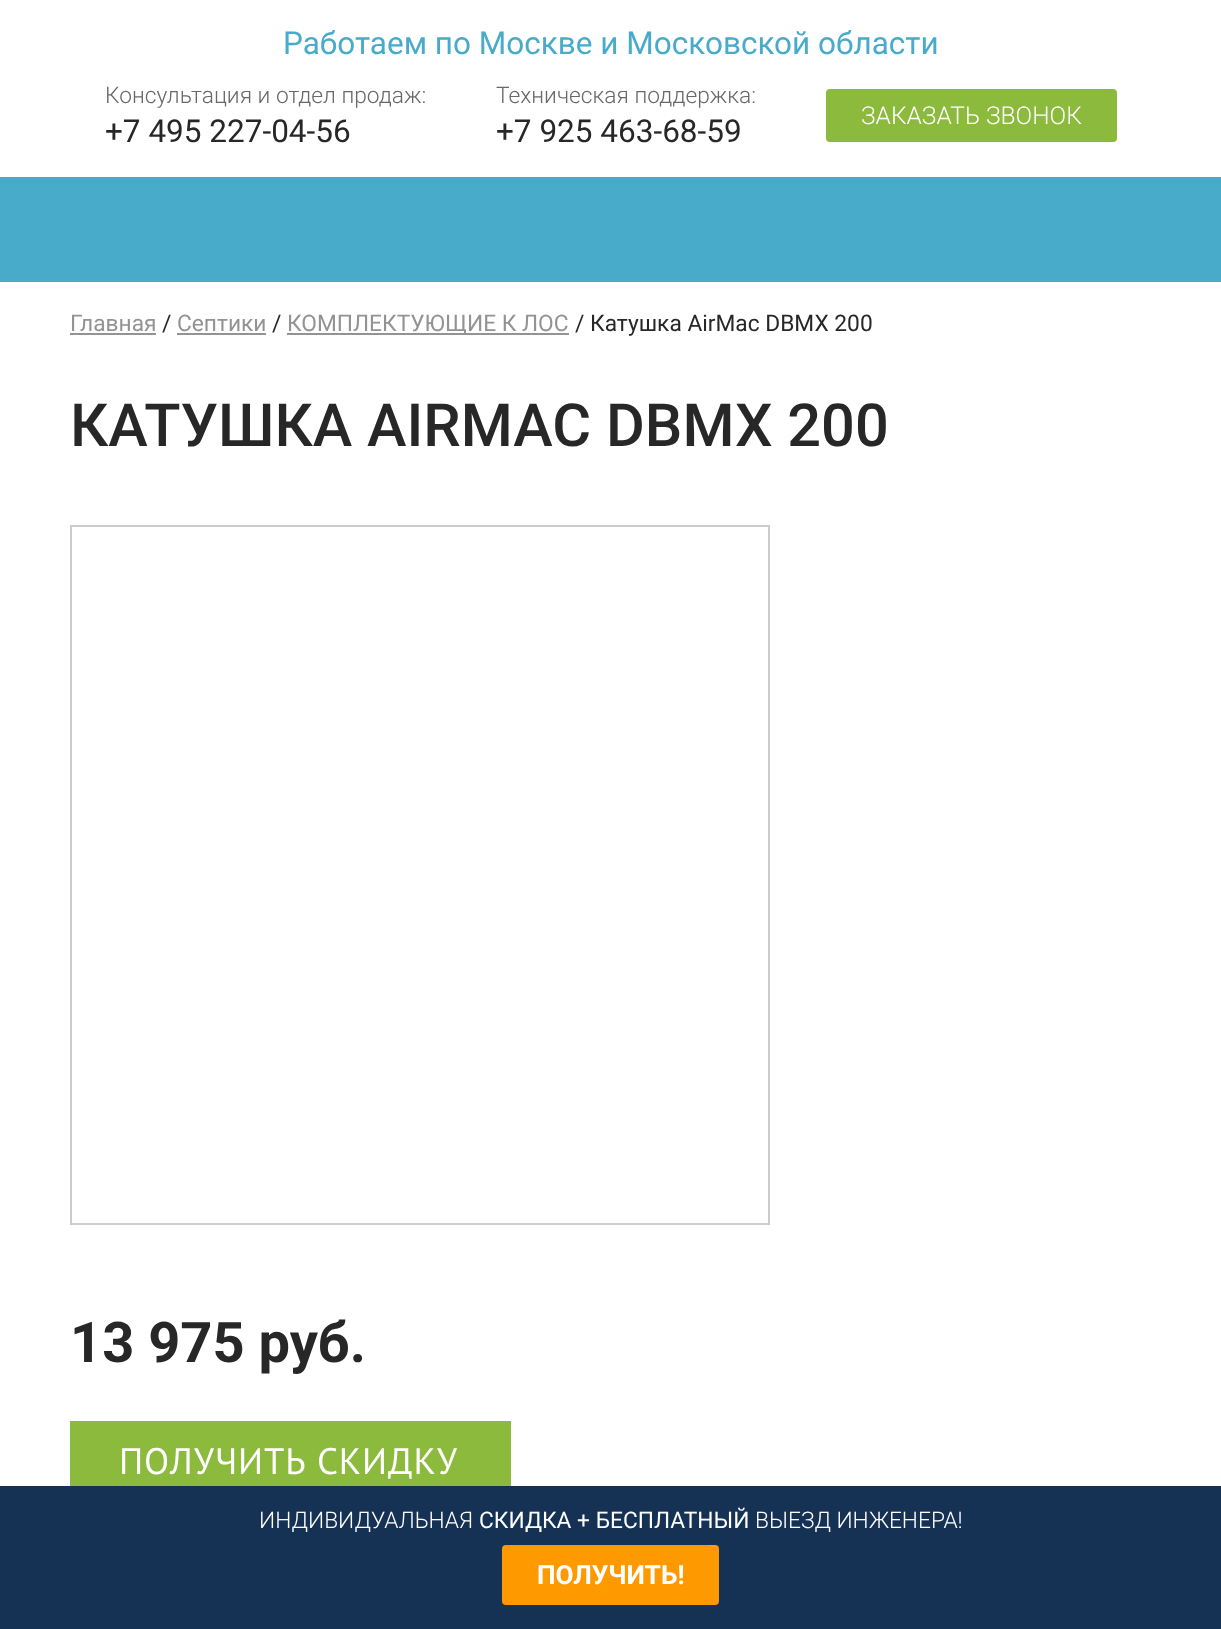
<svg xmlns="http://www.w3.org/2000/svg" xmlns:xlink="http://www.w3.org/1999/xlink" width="1221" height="1629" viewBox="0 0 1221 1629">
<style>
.cls-1{font:31.5px Roboto;fill:#48abca}
.cls-2{font:300 22.75px Roboto;fill:#686868}
.cls-3{font:31.5px Roboto;fill:#272727}
.cls-4{font:300 24.5px Roboto;fill:#ffffff}
.cls-5{font:22.75px Roboto;fill:#939393}
.cls-6{font:22.75px Roboto;fill:#272727}
.cls-7{font:500 59.5px Roboto;fill:#272727}
.cls-8{font:bold 56px Roboto;fill:#272727}
.cls-9{font:36.75px PT Sans;letter-spacing:0.9px;fill:#ffffff}
.cls-10{font:300 22.75px Roboto;fill:#ffffff}
.cls-11{font:22.75px Roboto;fill:#ffffff}
.cls-12{font:bold 26.25px Roboto;fill:#ffffff}
</style>
<rect width="100%" height="100%" fill="#ffffff"/>
<rect fill="#8cba3d" stroke="#8cba3d" stroke-width="2" x="827" y="90" width="289" height="51" rx="3"/>
<rect fill="#48abca" x="0" y="177" width="1221" height="105"/>
<rect fill="#939393" x="70" y="333" width="86" height="2"/>
<rect fill="#939393" x="177" y="333" width="89" height="2"/>
<rect fill="#939393" x="287" y="333" width="282" height="2"/>
<rect fill="none" stroke="#cccccc" stroke-width="2" x="71" y="526" width="698" height="698"/>
<rect fill="#8cba3d" x="70" y="1421" width="441" height="65"/>
<rect fill="#153153" x="0" y="1486" width="1221" height="143"/>
<rect fill="#ff9900" x="502" y="1545" width="217" height="60" rx="4"/>
<text class="cls-1" x="283" y="54">Работаем по Москве и Московской области</text>
<text class="cls-2" x="105" y="103">Консультация и отдел продаж:</text>
<text class="cls-3" x="105" y="142">+7 495 227-04-56</text>
<text class="cls-2" x="496" y="103">Техническая поддержка:</text>
<text class="cls-3" x="496" y="142">+7 925 463-68-59</text>
<text class="cls-4" x="861" y="124">ЗАКАЗАТЬ ЗВОНОК</text>
<text class="cls-5" x="70" y="331">Главная</text>
<text class="cls-6" x="162" y="331">/</text>
<text class="cls-5" x="177" y="331">Септики</text>
<text class="cls-6" x="272" y="331">/</text>
<text class="cls-5" x="287" y="331">КОМПЛЕКТУЮЩИЕ К ЛОС</text>
<text class="cls-6" x="575" y="331">/ Катушка AirMac DBMX 200</text>
<text class="cls-7" x="70" y="446">КАТУШКА AIRMAC DBMX 200</text>
<text class="cls-8" x="70" y="1362">13 975 руб.</text>
<text class="cls-9" x="119" y="1474" word-spacing="1">ПОЛУЧИТЬ СКИДКУ</text>
<text class="cls-10" x="259" y="1528">ИНДИВИДУАЛЬНАЯ</text>
<text class="cls-11" x="479" y="1528">СКИДКА + БЕСПЛАТНЫЙ</text>
<text class="cls-10" x="755" y="1528">ВЫЕЗД ИНЖЕНЕРА!</text>
<text class="cls-12" x="537" y="1584">ПОЛУЧИТЬ!</text>
</svg>
